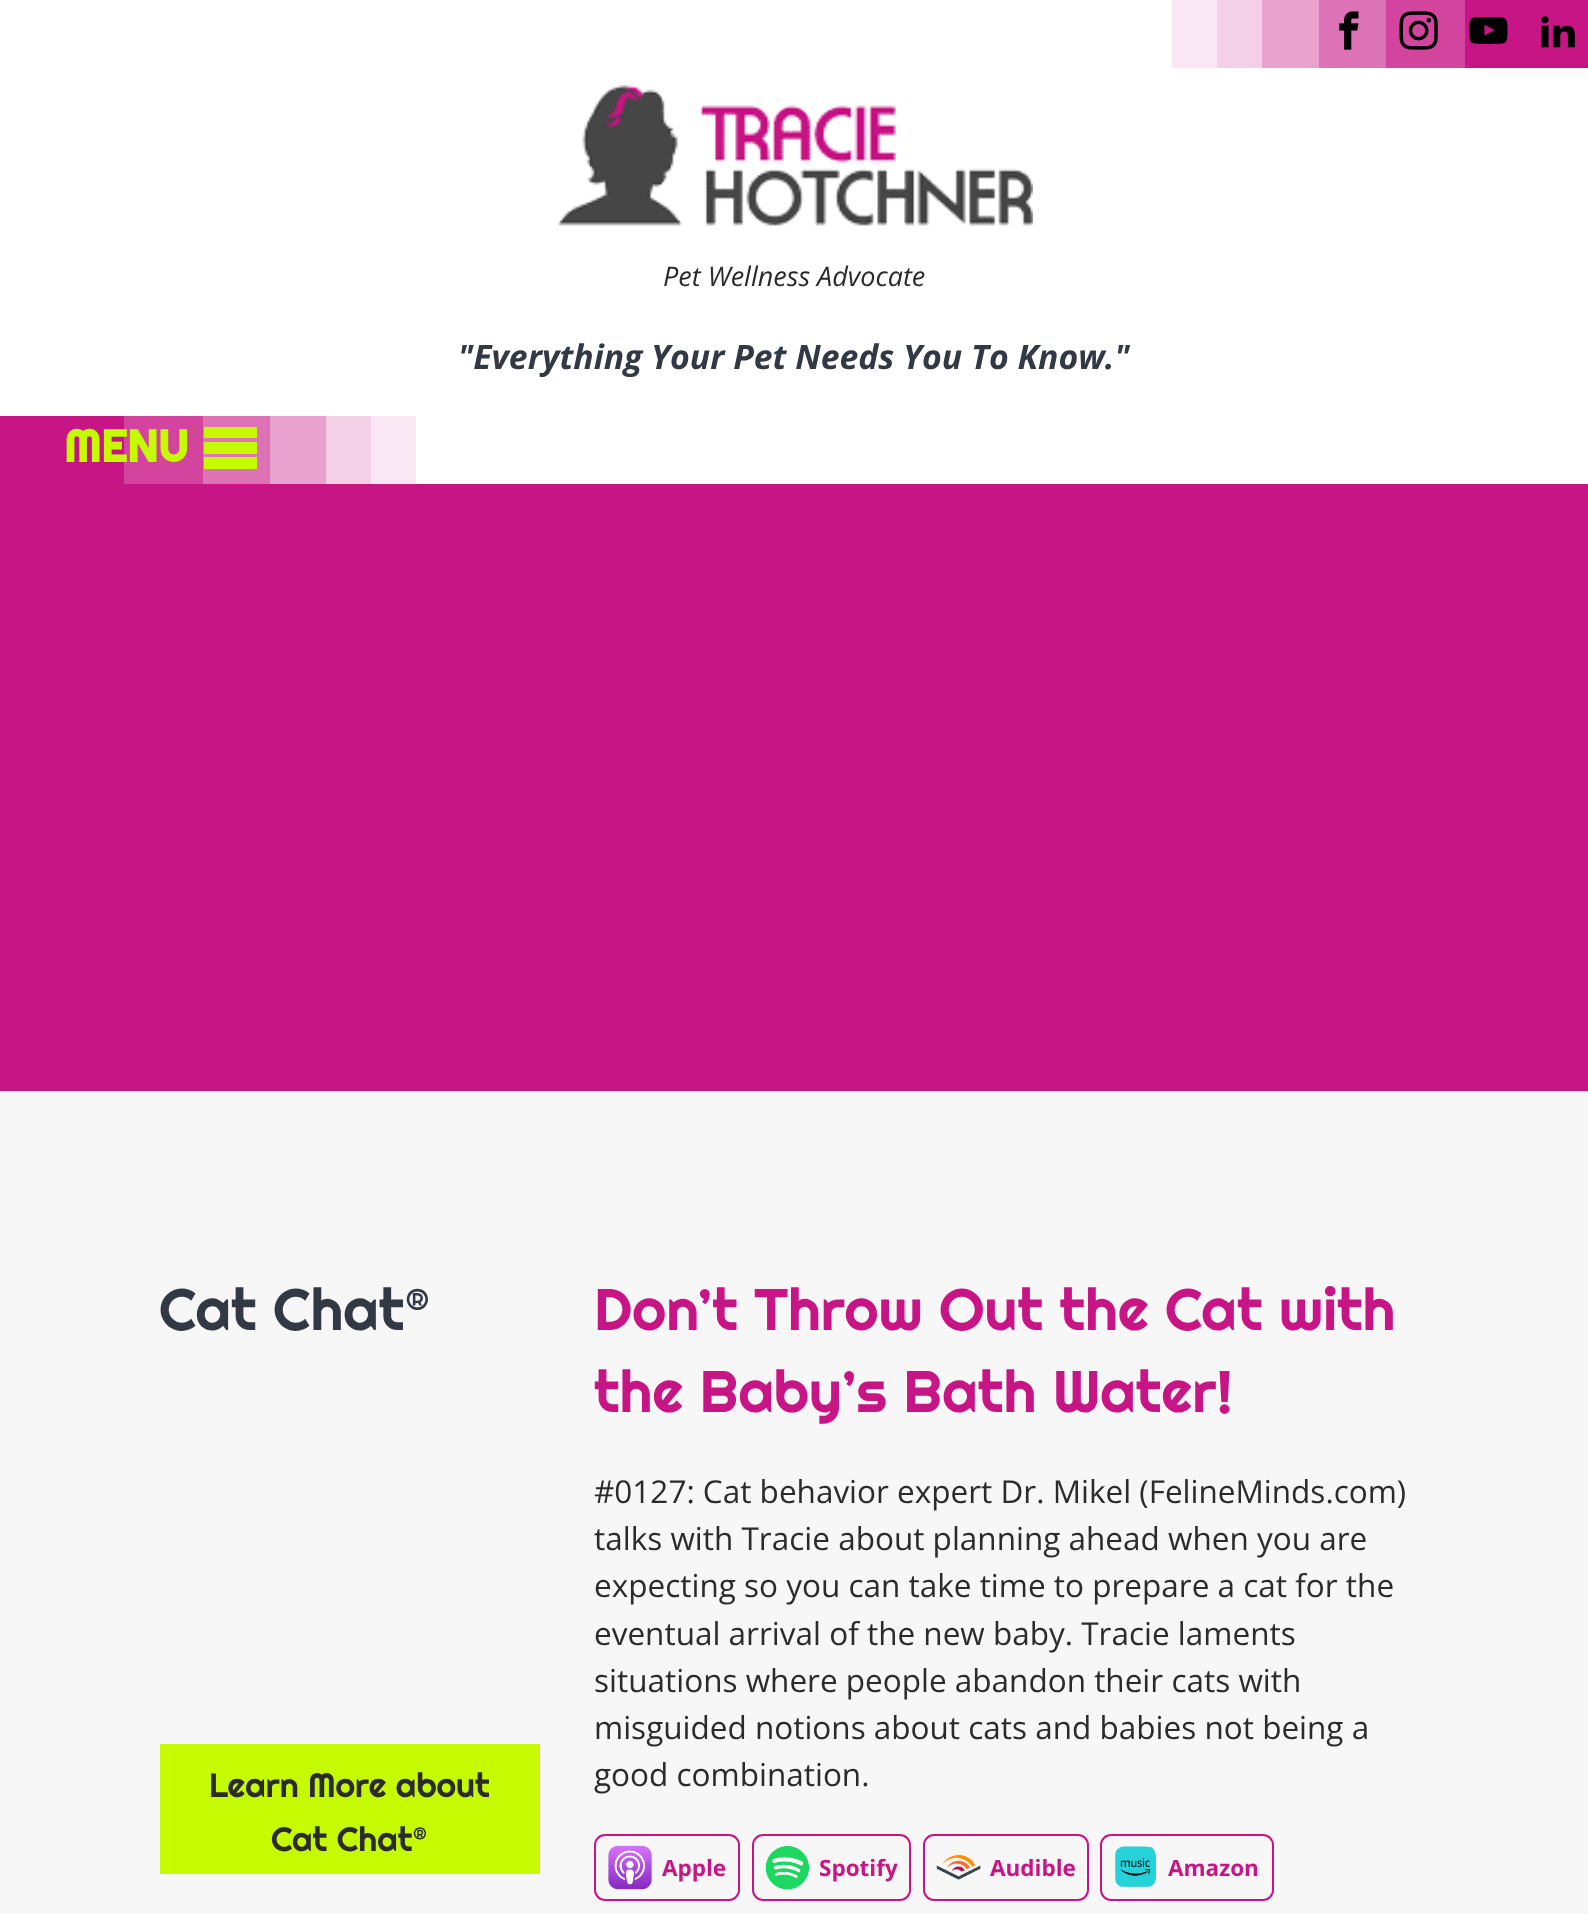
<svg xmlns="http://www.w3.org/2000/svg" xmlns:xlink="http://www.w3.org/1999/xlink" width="1588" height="1914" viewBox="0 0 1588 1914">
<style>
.cls-1{font:italic 27px Open Sans;fill:#2b2b2b}
.cls-2{font:italic bold 33.75px Open Sans;fill:#323944}
.cls-3{font:bold 45px Righteous;fill:#c6fa02}
.cls-4{font:58.5px Righteous;fill:#323944}
.cls-5{font:33.75px Righteous;fill:#2b2b2b}
.cls-6{font:58.5px Righteous;fill:#c71585}
.cls-7{font:31.5px Open Sans;fill:#2b2b2b}
.cls-8{font:bold 22.5px Open Sans;fill:#c71585}
</style>
<rect width="100%" height="100%" fill="#f7f7f7"/>
<rect fill="#ffffff" x="0" y="0" width="1588" height="484"/>
<rect fill="#c71585" x="1465" y="0" width="123" height="68"/>
<rect fill="#d2449d" x="1386" y="0" width="79" height="68"/>
<rect fill="#dd73b6" x="1319" y="0" width="67" height="68"/>
<rect fill="#e9a1ce" x="1262" y="0" width="57" height="68"/>
<rect fill="#f4d0e7" x="1217" y="0" width="45" height="68"/>
<rect fill="#f9e8f3" x="1172" y="0" width="45" height="68"/>
<image xlink:href="image0.png" x="1339" y="11" width="20" height="39"/>
<image xlink:href="image1.png" x="1399" y="11" width="39" height="39"/>
<image xlink:href="image2.png" x="1469" y="17" width="39" height="27"/>
<image xlink:href="image3.png" x="1541" y="16" width="34" height="32"/>
<image xlink:href="image4.png" x="558" y="85" width="475" height="141"/>
<rect fill="#c71585" x="0" y="416" width="124" height="68"/>
<rect fill="#d2449d" x="124" y="416" width="79" height="68"/>
<rect fill="#dd73b6" x="203" y="416" width="67" height="68"/>
<rect fill="#e9a1ce" x="270" y="416" width="56" height="68"/>
<rect fill="#f4d0e7" x="326" y="416" width="45" height="68"/>
<rect fill="#f9e8f3" x="371" y="416" width="45" height="68"/>
<path fill="#c6fa02" d="M204 427H257V438H204ZM204 442H257V454H204ZM204 457H257V469H204Z"/>
<rect fill="#c71585" x="0" y="484" width="1588" height="607"/>
<rect fill="#c6fa02" x="160" y="1744" width="380" height="130"/>
<rect fill="none" stroke="#c71585" stroke-width="2" x="595" y="1835" width="144" height="65" rx="10"/>
<image xlink:href="image5.png" x="608" y="1845" width="44" height="45"/>
<rect fill="none" stroke="#c71585" stroke-width="2" x="753" y="1835" width="157" height="65" rx="10"/>
<image xlink:href="image6.png" x="765" y="1845" width="45" height="45"/>
<rect fill="none" stroke="#c71585" stroke-width="2" x="924" y="1835" width="164" height="65" rx="10"/>
<image xlink:href="image7.png" x="936" y="1854" width="45" height="26"/>
<rect fill="none" stroke="#c71585" stroke-width="2" x="1101" y="1835" width="172" height="65" rx="10"/>
<image xlink:href="image8.png" x="1115" y="1846" width="41" height="41"/>
<text class="cls-1" x="663" y="286">Pet Wellness Advocate</text>
<text class="cls-2" x="458" y="369">"Everything Your Pet Needs You To Know."</text>
<text class="cls-3" x="64" y="462">MENU</text>
<text class="cls-4" x="159" y="1330">Cat Chat®</text>
<text class="cls-5" x="209" y="1797">Learn More about</text>
<text class="cls-5" x="271" y="1851">Cat Chat®</text>
<text class="cls-6"><tspan x="594" y="1330">Don’t Throw Out the Cat with</tspan><tspan x="594" y="1412">the Baby’s Bath Water!</tspan></text>
<text class="cls-7"><tspan x="594" y="1503">#0127: Cat behavior expert Dr. Mikel (FelineMinds.com)</tspan><tspan x="594" y="1550">talks with Tracie about planning ahead when you are</tspan><tspan x="594" y="1597">expecting so you can take time to prepare a cat for the</tspan><tspan x="594" y="1645">eventual arrival of the new baby. Tracie laments</tspan><tspan x="594" y="1692">situations where people abandon their cats with</tspan><tspan x="594" y="1739">misguided notions about cats and babies not being a</tspan><tspan x="594" y="1786">good combination.</tspan></text>
<text class="cls-8" x="662" y="1876">Apple</text>
<text class="cls-8" x="819" y="1876">Spotify</text>
<text class="cls-8" x="990" y="1876">Audible</text>
<text class="cls-8" x="1168" y="1876">Amazon</text>
</svg>
